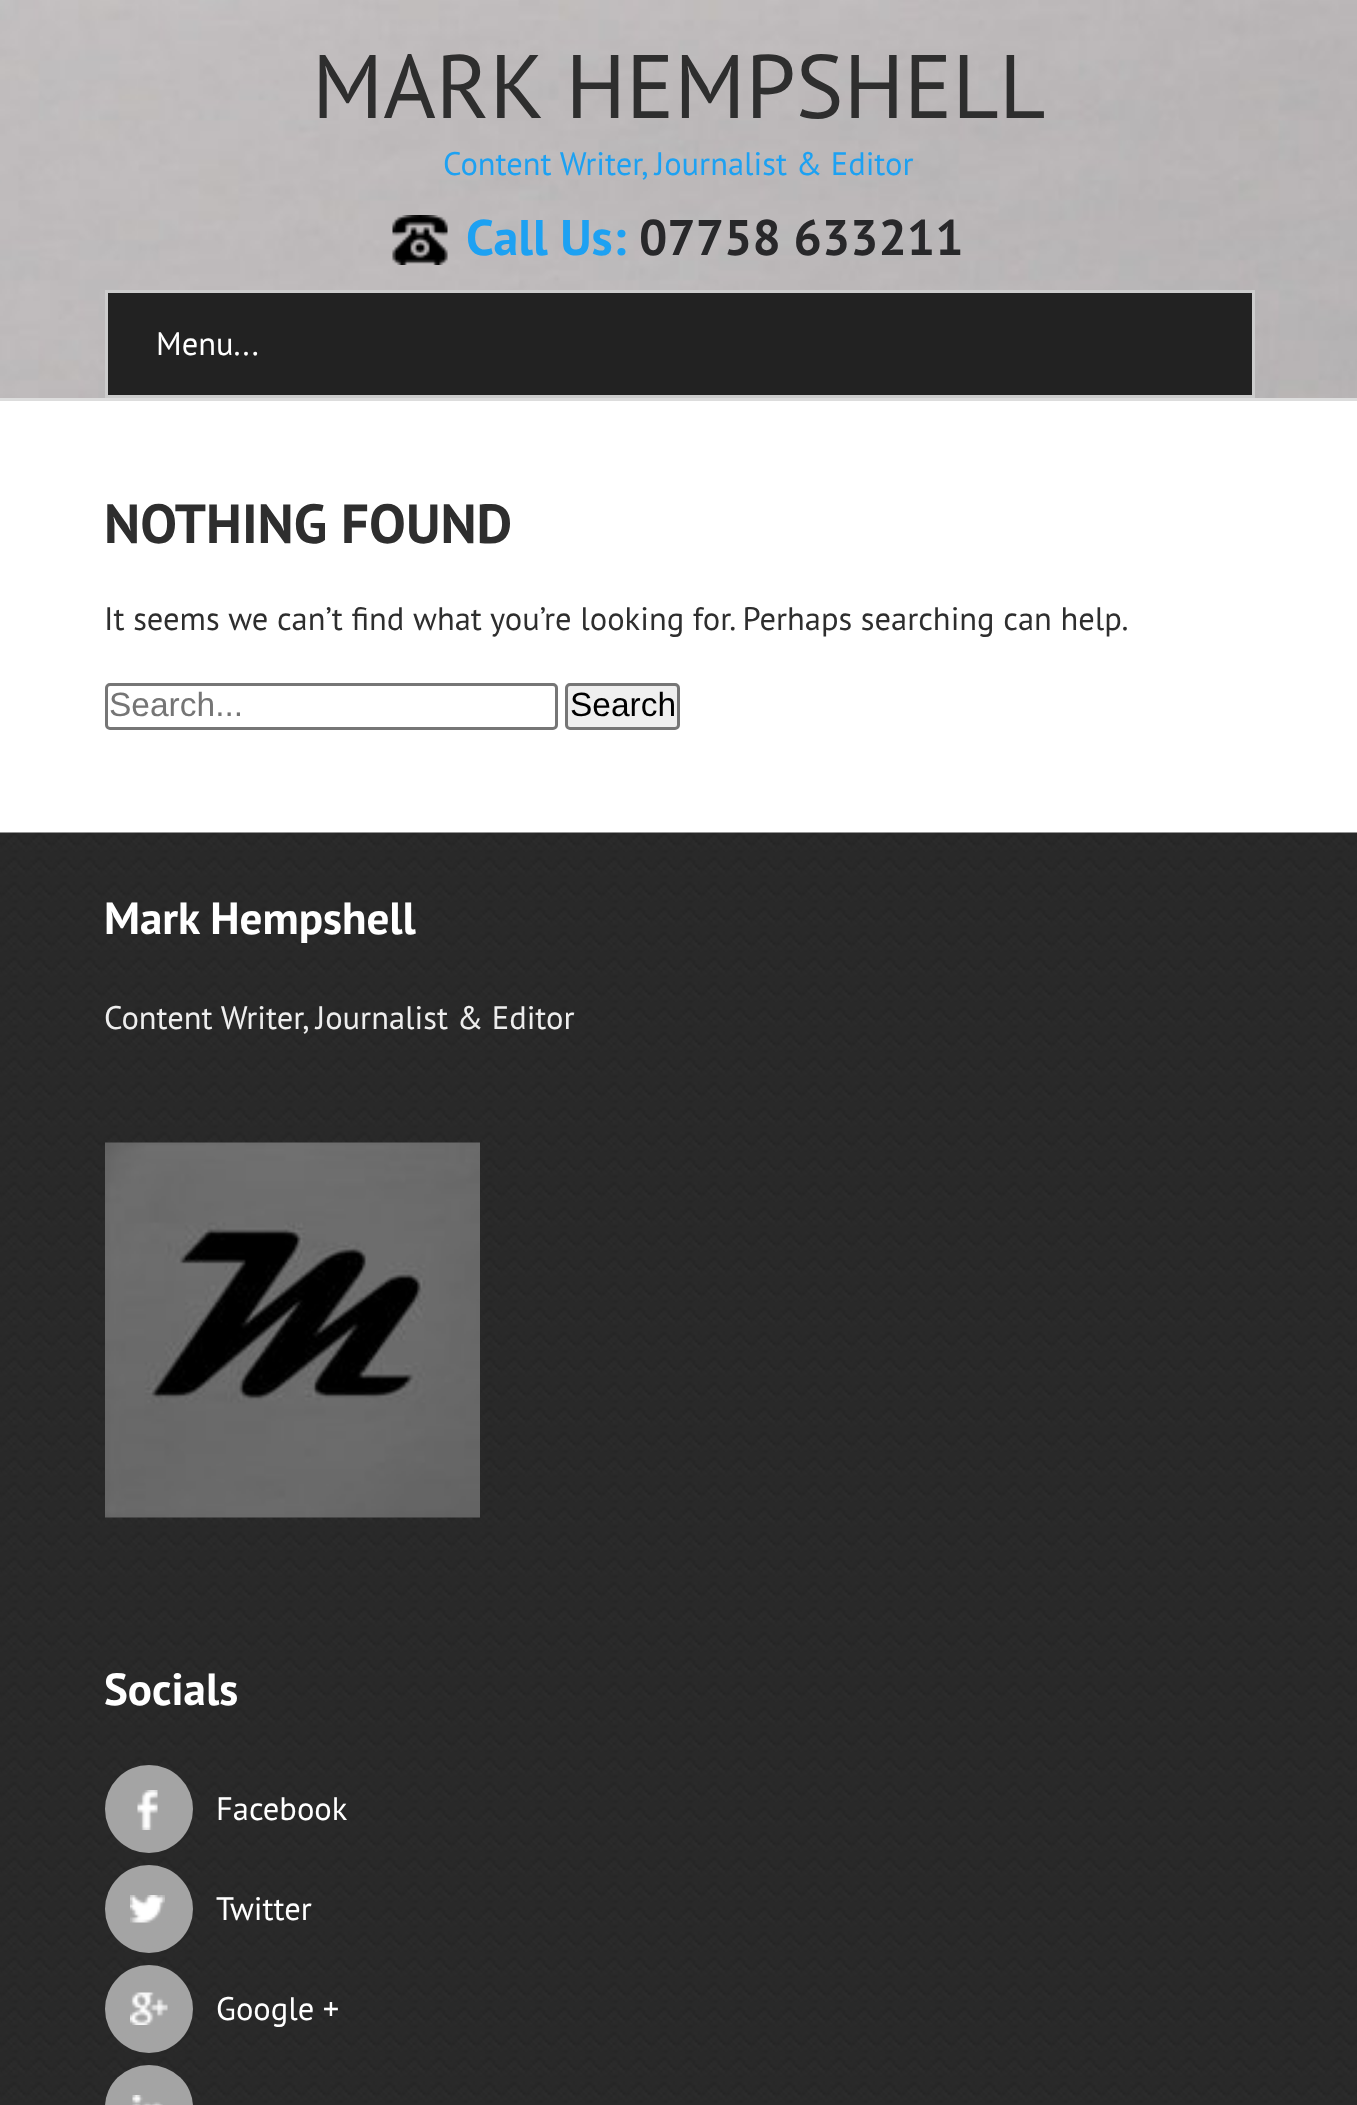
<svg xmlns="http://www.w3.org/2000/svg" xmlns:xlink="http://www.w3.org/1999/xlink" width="1357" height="2105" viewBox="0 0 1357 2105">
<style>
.cls-1{font:90px PT Sans;fill:#2e2e2e}
.cls-2{font:32.5px PT Sans;fill:#1da1f2}
.cls-3{font:bold 50px PT Sans;fill:#1da1f2}
.cls-4{font:bold 50px PT Sans;fill:#28282a}
.cls-5{font:32.5px PT Sans;fill:#ffffff}
.cls-6{font:bold 55px PT Sans;fill:#2e2e2e}
.cls-7{font:32.5px PT Sans;fill:#2e2e2e}
.cls-8{font:33.5px Liberation Sans;fill:#757575}
.cls-9{font:33.5px Liberation Sans;fill:#000000}
.cls-10{font:bold 45px PT Sans;fill:#ffffff}
.cls-11{font:32.5px PT Sans;fill:#eeeeee}
</style>
<rect width="100%" height="100%" fill="#ffffff"/>
<image xlink:href="image0.png" x="0" y="0" width="1357" height="398"/>
<rect fill="#dddddd" x="0" y="398" width="1357" height="3"/>
<image xlink:href="image1.png" x="392" y="215" width="56" height="50"/>
<rect fill="#222222" stroke="#cccccc" stroke-width="3" x="106.5" y="291.5" width="1147" height="105"/>
<rect fill="none" stroke="#767676" stroke-width="3" x="106.5" y="684.5" width="450" height="44" rx="3.5"/>
<rect fill="#efefef" stroke="#767676" stroke-width="3" x="566.5" y="684.5" width="112" height="44" rx="3.5"/>
<image xlink:href="image2.png" x="0" y="832" width="1357" height="1273"/>
<image xlink:href="image3.png" x="105" y="1142" width="375" height="376"/>
<circle fill="#a4a4a4" cx="149" cy="1809" r="44"/>
<image xlink:href="image4.png" x="137" y="1790" width="21" height="40"/>
<circle fill="#a4a4a4" cx="149" cy="1909" r="44"/>
<image xlink:href="image5.png" x="130" y="1895" width="35" height="28"/>
<circle fill="#a4a4a4" cx="149" cy="2009" r="44"/>
<image xlink:href="image6.png" x="130" y="1992" width="38" height="33"/>
<rect fill="#a4a4a4" x="105" y="2065" width="88" height="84" rx="44"/>
<image xlink:href="image7.png" x="132" y="2095" width="31" height="10"/>
<text class="cls-1" x="312" y="118">MARK HEMPSHELL</text>
<text class="cls-2" x="443" y="175">Content Writer, Journalist &amp; Editor</text>
<text class="cls-3" x="466" y="255">Call Us:</text>
<text class="cls-4" x="639" y="255">07758 633211</text>
<text class="cls-5" x="156" y="355">Menu...</text>
<text class="cls-6" x="104" y="543">NOTHING FOUND</text>
<text class="cls-7" x="104" y="630">It seems we can’t find what you’re looking for. Perhaps searching can help.</text>
<text class="cls-8" x="109" y="716">Search...</text>
<text class="cls-9" x="570" y="716">Search</text>
<text class="cls-10" x="104" y="934">Mark Hempshell</text>
<text class="cls-11" x="104" y="1029">Content Writer, Journalist &amp; Editor</text>
<text class="cls-10" x="104" y="1705">Socials</text>
<text class="cls-5" x="216" y="1820">Facebook</text>
<text class="cls-5" x="216" y="1920">Twitter</text>
<text class="cls-5" x="216" y="2020">Google +</text>
</svg>
